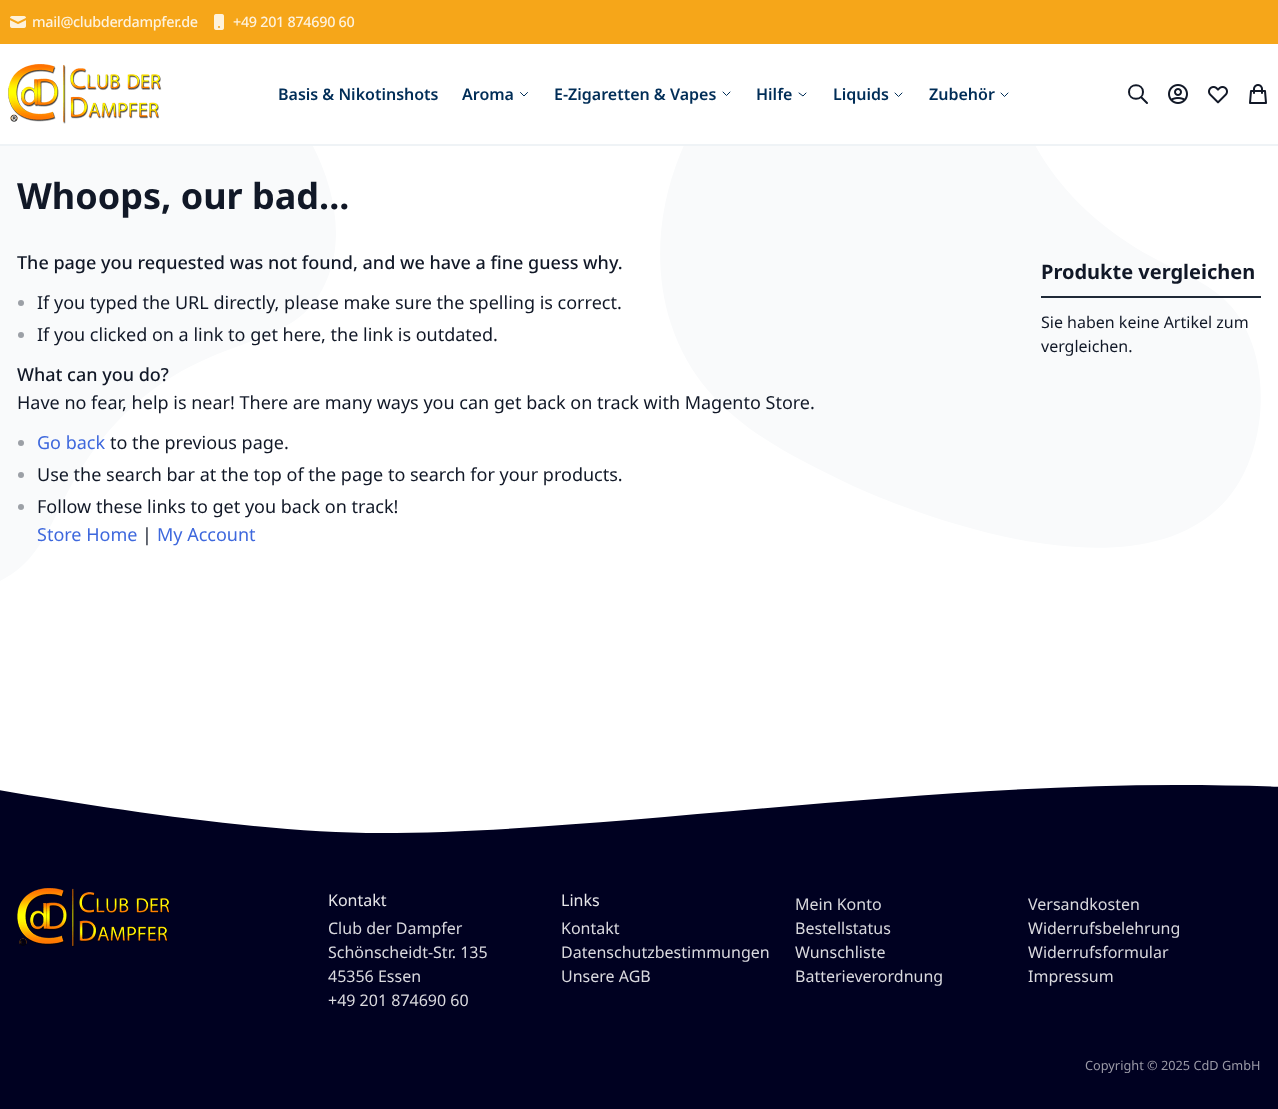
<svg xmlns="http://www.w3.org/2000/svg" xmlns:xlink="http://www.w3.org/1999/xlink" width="1278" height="1109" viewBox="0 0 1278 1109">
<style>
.cls-1{font:500 14.4px Noto Sans;letter-spacing:-0.3px;fill:#fef2dd}
.cls-2{font:600 16px Noto Sans;fill:#002d57}
.cls-3{font:bold 36px Noto Sans;fill:#111827}
.cls-4{font:500 18px Noto Sans;fill:#111827}
.cls-5{font:18px Noto Sans;fill:#111827}
.cls-6{font:18px Noto Sans;fill:#3e68dd}
.cls-7{font:bold 20px Noto Sans;fill:#111827}
.cls-8{font:16px Noto Sans;fill:#111827}
.cls-9{font:16px Noto Sans;fill:#e6e6e9}
.cls-10{font:16px Noto Sans;fill:#d9d9de}
.cls-11{font:12.75px Noto Sans;fill:#9999a6}
</style>
<rect width="100%" height="100%" fill="#ffffff"/>
<path fill="#f9fafb" d="M256 69C311 121 358 214 325 284C292 357 206 327 116 423C46 499 58 558-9 585C-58 606-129 599-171 564C-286 467-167 208-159 189C-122 113-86 36 3 7C92-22 193 10 256 69Z"/>
<path fill="#f9fafb" d="M733 71C785 16 878-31 948 2C1021 35 991 121 1087 211C1163 281 1222 269 1249 336C1270 385 1263 456 1228 498C1131 613 872 494 853 486C777 449 700 413 671 324C642 235 674 134 733 71Z"/>
<rect fill="#ffffff" x="0" y="44" width="1034" height="100"/>
<rect fill="#eff3f6" x="0" y="144" width="1278" height="2"/>
<rect fill="#f6a619" x="0" y="0" width="1278" height="44"/>
<image xlink:href="image0.png" x="10" y="16" width="16" height="12"/>
<image xlink:href="image1.png" x="214" y="14" width="10" height="16"/>
<image xlink:href="image2.png" x="8" y="64" width="154" height="60"/>
<path fill="none" stroke="#002d57" stroke-linecap="round" stroke-linejoin="round" d="M527.5 92.5L524 96L520.5 92.5"/>
<path fill="none" stroke="#002d57" stroke-linecap="round" stroke-linejoin="round" d="M730 92L726.5 95.5L723 92"/>
<path fill="none" stroke="#002d57" stroke-linecap="round" stroke-linejoin="round" d="M806 93L803 96L799 93"/>
<path fill="none" stroke="#002d57" stroke-linecap="round" stroke-linejoin="round" d="M902 93L898.5 96.5L895 93"/>
<path fill="none" stroke="#002d57" stroke-linecap="round" stroke-linejoin="round" d="M1008 93L1004.5 96.5L1001 93"/>
<path fill="none" stroke="#111827" stroke-width="2" stroke-linecap="round" stroke-linejoin="round" d="M1147 103L1141 97M1143 92C1143 101 1129 101 1129 92C1129 83 1143 83 1143 92Z"/>
<image xlink:href="image3.png" x="1168" y="84" width="20" height="20"/>
<image xlink:href="image4.png" x="1208" y="86" width="20" height="18"/>
<image xlink:href="image5.png" x="1249" y="84" width="18" height="20"/>
<circle fill="#9ca0a6" cx="21" cy="303" r="3"/>
<circle fill="#9ca0a6" cx="21" cy="335" r="3"/>
<circle fill="#9ca0a6" cx="21" cy="443" r="3"/>
<circle fill="#9ca0a6" cx="21" cy="475" r="3"/>
<circle fill="#9ca0a6" cx="21" cy="507" r="3"/>
<rect fill="#1f2937" x="1041" y="296" width="220" height="2"/>
<path fill="#000121" d="M381 833C205 833-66 777-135 767C-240 751-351 767-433 785C-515 803-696 833-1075 833V847H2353V833C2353 833 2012 825 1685 811C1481 802 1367 785 1176 785C900 785 597 833 381 833Z"/>
<rect fill="#000121" x="0" y="847" width="1278" height="262"/>
<image xlink:href="image6.png" x="17" y="888" width="153" height="59"/>
<text class="cls-1" x="32" y="27">mail@clubderdampfer.de</text>
<text class="cls-1" x="233" y="27">+49 201 874690 60</text>
<text class="cls-2" x="278" y="100">Basis &amp; Nikotinshots</text>
<text class="cls-2" x="462" y="100">Aroma</text>
<text class="cls-2" x="554" y="100">E-Zigaretten &amp; Vapes</text>
<text class="cls-2" x="756" y="100">Hilfe</text>
<text class="cls-2" x="833" y="100">Liquids</text>
<text class="cls-2" x="929" y="100">Zubehör</text>
<text class="cls-3" x="17" y="209">Whoops, our bad...</text>
<text class="cls-4" x="17" y="269">The page you requested was not found, and we have a fine guess why.</text>
<text class="cls-5"><tspan x="37" y="309">If you typed the URL directly, please make sure the spelling is correct.</tspan><tspan x="37" y="341">If you clicked on a link to get here, the link is outdated.</tspan></text>
<text class="cls-4" x="17" y="381">What can you do?</text>
<text class="cls-5" x="17" y="409">Have no fear, help is near! There are many ways you can get back on track with Magento Store.</text>
<text class="cls-6" x="37" y="449">Go back</text>
<text class="cls-5" x="110" y="449">to the previous page.</text>
<text class="cls-5"><tspan x="37" y="481">Use the search bar at the top of the page to search for your products.</tspan><tspan x="37" y="513">Follow these links to get you back on track!</tspan></text>
<text class="cls-6" x="37" y="541">Store Home</text>
<text class="cls-5" x="142" y="541">|</text>
<text class="cls-6" x="157" y="541">My Account</text>
<text class="cls-7" x="1041" y="279">Produkte vergleichen</text>
<text class="cls-8"><tspan x="1041" y="328">Sie haben keine Artikel zum</tspan><tspan x="1041" y="352">vergleichen.</tspan></text>
<text class="cls-9" x="328" y="906">Kontakt</text>
<text class="cls-10"><tspan x="328" y="934">Club der Dampfer</tspan><tspan x="328" y="958">Schönscheidt-Str. 135</tspan><tspan x="328" y="982">45356 Essen</tspan><tspan x="328" y="1006">+49 201 874690 60</tspan></text>
<text class="cls-9" x="561" y="906">Links</text>
<text class="cls-10"><tspan x="561" y="934">Kontakt</tspan><tspan x="561" y="958">Datenschutzbestimmungen</tspan><tspan x="561" y="982">Unsere AGB</tspan></text>
<text class="cls-10"><tspan x="795" y="910">Mein Konto</tspan><tspan x="795" y="934">Bestellstatus</tspan><tspan x="795" y="958">Wunschliste</tspan><tspan x="795" y="982">Batterieverordnung</tspan></text>
<text class="cls-10"><tspan x="1028" y="910">Versandkosten</tspan><tspan x="1028" y="934">Widerrufsbelehrung</tspan><tspan x="1028" y="958">Widerrufsformular</tspan><tspan x="1028" y="982">Impressum</tspan></text>
<text class="cls-11" x="1085" y="1070">Copyright © 2025 CdD GmbH</text>
</svg>
